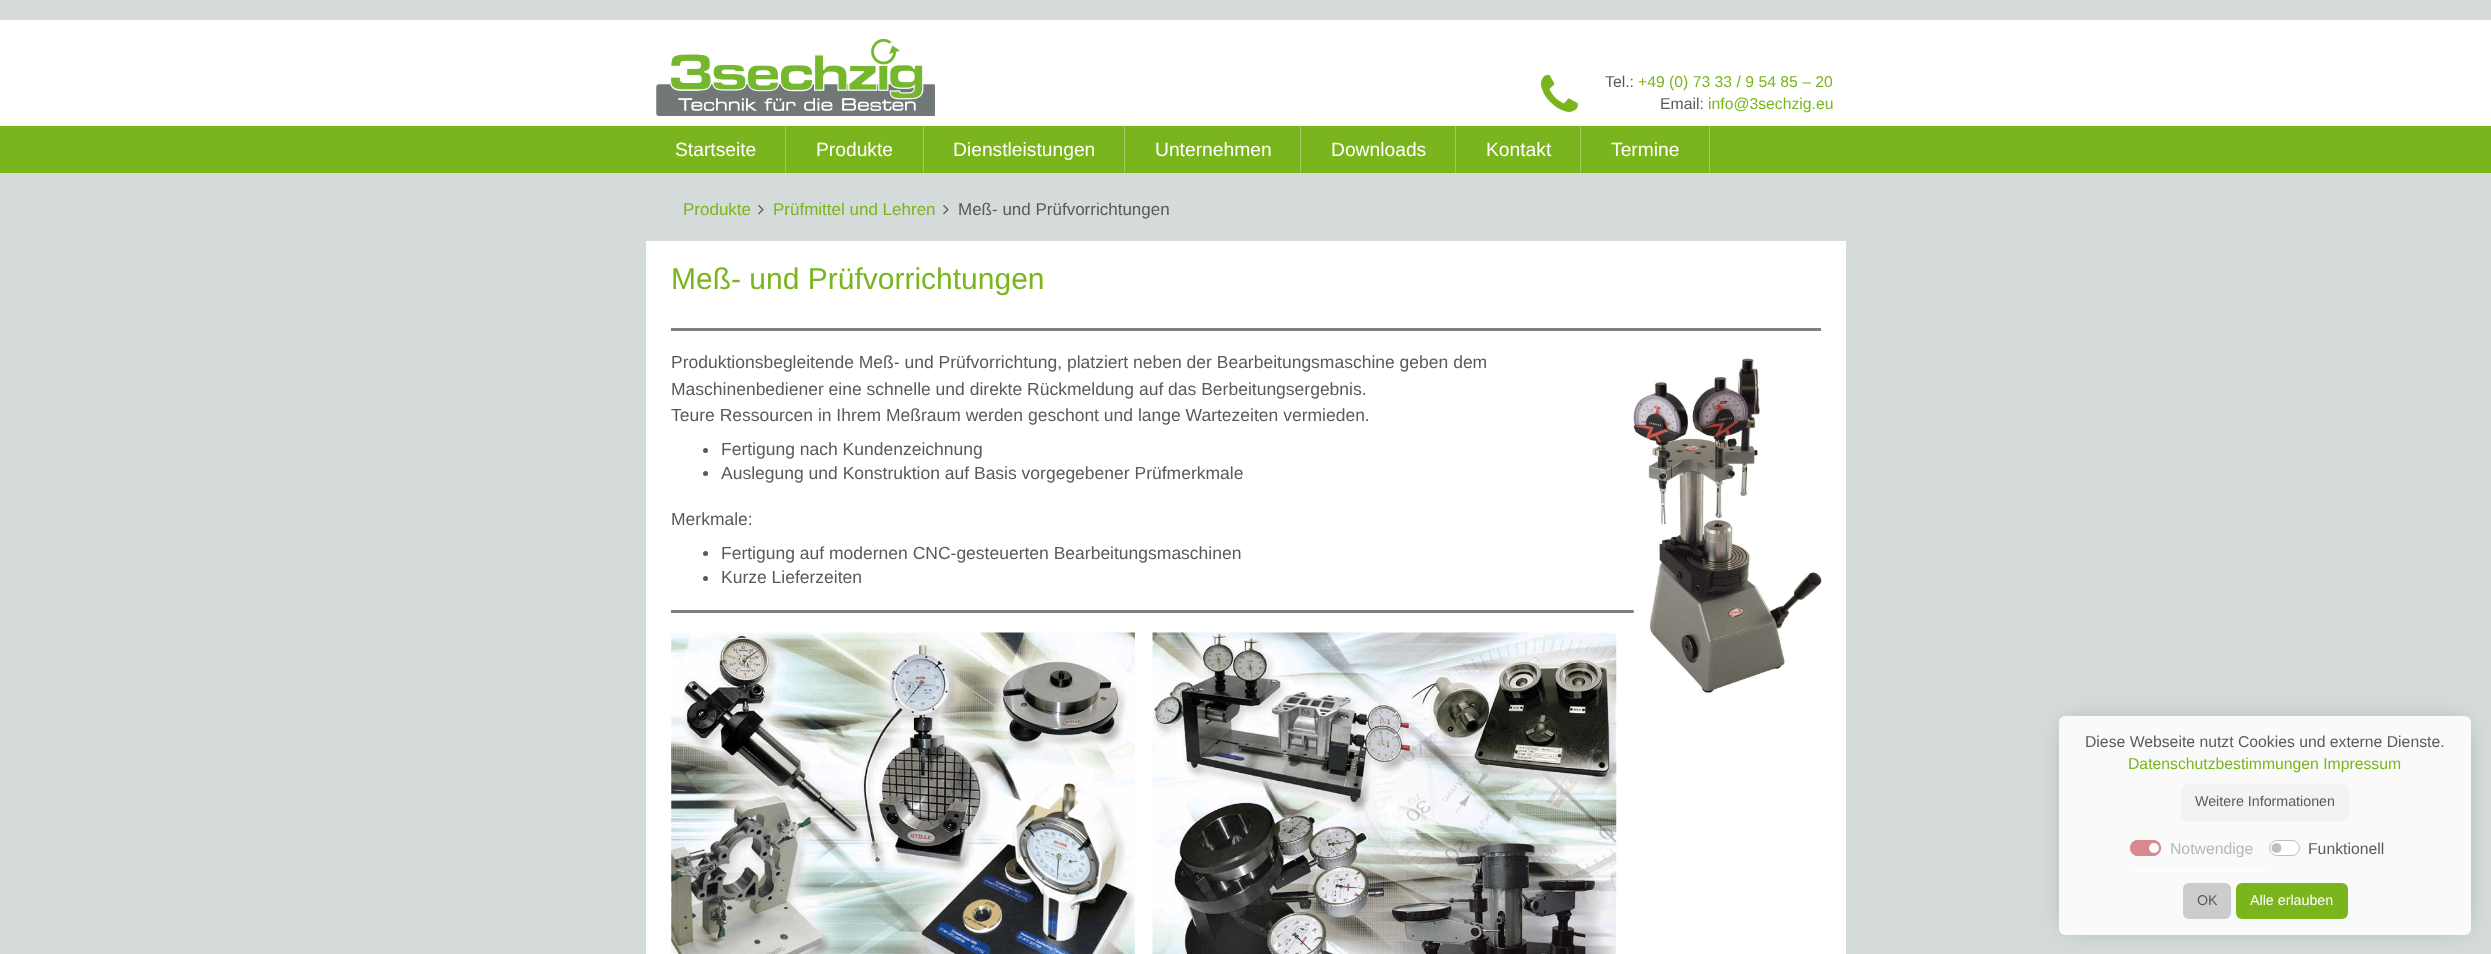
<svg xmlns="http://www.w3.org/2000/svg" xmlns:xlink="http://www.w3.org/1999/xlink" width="2491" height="954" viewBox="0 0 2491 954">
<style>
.cls-1{font:15.75px Liberation Sans;fill:#5a5a5a}
.cls-2{font:15.75px Liberation Sans;fill:#7ab51d}
.cls-3{font:19.25px Liberation Sans;fill:#ffffff}
.cls-4{font:17px Liberation Sans;fill:#7ab51d}
.cls-5{font:17px Liberation Sans;fill:#5a5a5a}
.cls-6{font:30px Liberation Sans;fill:#7ab51d}
.cls-7{font:17.5px Liberation Sans;fill:#5a5a5a}
.cls-8{font:14.25px Liberation Sans;fill:#5a5a5a}
.cls-9{font:15.75px Liberation Sans;fill:#b3b8bc}
.cls-10{font:14.25px Liberation Sans;fill:#ffffff}
</style>
<rect width="100%" height="100%" fill="#d5dada"/>
<rect fill="#ffffff" x="0" y="20" width="2491" height="106"/>
<image xlink:href="image0.png" x="656" y="39" width="279" height="77"/>
<image xlink:href="image1.png" x="1540" y="74" width="38" height="38"/>
<rect fill="#7ab51d" x="0" y="126" width="2491" height="47"/>
<rect fill="#a2cb61" x="785" y="126" width="1" height="47"/>
<rect fill="#a2cb61" x="923" y="126" width="1" height="47"/>
<rect fill="#a2cb61" x="1124" y="126" width="1" height="47"/>
<rect fill="#a2cb61" x="1300" y="126" width="1" height="47"/>
<rect fill="#a2cb61" x="1455" y="126" width="1" height="47"/>
<rect fill="#a2cb61" x="1580" y="126" width="1" height="47"/>
<rect fill="#a2cb61" x="1709" y="126" width="1" height="47"/>
<image xlink:href="image2.png" x="758" y="205" width="6" height="10"/>
<image xlink:href="image2.png" x="943" y="205" width="6" height="10"/>
<rect fill="#ffffff" x="646" y="241" width="1200" height="713"/>
<rect fill="#808080" x="671" y="328" width="1150" height="3"/>
<rect fill="#808080" x="671" y="610" width="963" height="3"/>
<image xlink:href="image3.png" x="1633" y="358" width="189" height="335"/>
<circle fill="#5a5a5a" cx="705.5" cy="450.5" r="2.5"/>
<circle fill="#5a5a5a" cx="705.5" cy="473.5" r="2.5"/>
<circle fill="#5a5a5a" cx="705.5" cy="553.5" r="2.5"/>
<circle fill="#5a5a5a" cx="705.5" cy="578.5" r="2.5"/>
<image xlink:href="image4.png" x="671" y="632" width="464" height="322"/>
<image xlink:href="image5.png" x="1152" y="632" width="465" height="322"/>
<rect fill="#000000" fill-opacity="0.3" filter="blur(12.5px)" x="2068" y="725" width="395" height="201"/>
<rect fill="#fafafa" x="2059" y="716" width="412" height="219" rx="6"/>
<rect fill="#f3f3f3" x="2181" y="784" width="168" height="37" rx="6"/>
<rect fill="#ffffff" x="2130" y="871" width="139" height="1"/>
<rect fill="#d88a90" x="2130" y="840" width="31" height="16" rx="8"/>
<circle fill="#fdfdfd" cx="2154" cy="848" r="5"/>
<rect fill="none" stroke="#d88a90" x="2130.5" y="840.5" width="30" height="15" rx="7.5"/>
<rect fill="#ffffff" x="2269" y="840" width="31" height="16" rx="8"/>
<circle fill="#bfbfbf" cx="2276.5" cy="848" r="5"/>
<rect fill="none" stroke="#bfbfbf" x="2269.5" y="840.5" width="30" height="15" rx="7.5"/>
<rect fill="#cccccc" x="2183" y="883" width="48" height="36" rx="6"/>
<rect fill="#7ab51d" x="2236" y="883" width="112" height="36" rx="6"/>
<text class="cls-1" x="1605" y="87">Tel.:</text>
<text class="cls-2" x="1638" y="87">+49 (0) 73 33 / 9 54 85 – 20</text>
<text class="cls-1" x="1660" y="109">Email:</text>
<text class="cls-2" x="1708" y="109">info@3sechzig.eu</text>
<text class="cls-3" x="675" y="156">Startseite</text>
<text class="cls-3" x="816" y="156">Produkte</text>
<text class="cls-3" x="953" y="156">Dienstleistungen</text>
<text class="cls-3" x="1155" y="156">Unternehmen</text>
<text class="cls-3" x="1331" y="156">Downloads</text>
<text class="cls-3" x="1486" y="156">Kontakt</text>
<text class="cls-3" x="1611" y="156">Termine</text>
<text class="cls-4" x="683" y="215">Produkte</text>
<text class="cls-4" x="773" y="215">Prüfmittel und Lehren</text>
<text class="cls-5" x="958" y="215">Meß- und Prüfvorrichtungen</text>
<text class="cls-6" x="671" y="289">Meß- und Prüfvorrichtungen</text>
<text class="cls-7"><tspan x="671" y="368">Produktionsbegleitende Meß- und Prüfvorrichtung, platziert neben der Bearbeitungsmaschine geben dem</tspan><tspan x="671" y="395">Maschinenbediener eine schnelle und direkte Rückmeldung auf das Berbeitungsergebnis.</tspan><tspan x="671" y="421">Teure Ressourcen in Ihrem Meßraum werden geschont und lange Wartezeiten vermieden.</tspan></text>
<text class="cls-7"><tspan x="721" y="455">Fertigung nach Kundenzeichnung</tspan><tspan x="721" y="479">Auslegung und Konstruktion auf Basis vorgegebener Prüfmerkmale</tspan></text>
<text class="cls-7" x="671" y="525">Merkmale:</text>
<text class="cls-7"><tspan x="721" y="559">Fertigung auf modernen CNC-gesteuerten Bearbeitungsmaschinen</tspan><tspan x="721" y="583">Kurze Lieferzeiten</tspan></text>
<text class="cls-1" x="2085" y="747">Diese Webseite nutzt Cookies und externe Dienste.</text>
<text class="cls-2" x="2128" y="769">Datenschutzbestimmungen Impressum</text>
<text class="cls-8" x="2195" y="806">Weitere Informationen</text>
<text class="cls-9" x="2170" y="854">Notwendige</text>
<text class="cls-1" x="2308" y="854">Funktionell</text>
<text class="cls-8" x="2197" y="905">OK</text>
<text class="cls-10" x="2250" y="905">Alle erlauben</text>
</svg>
